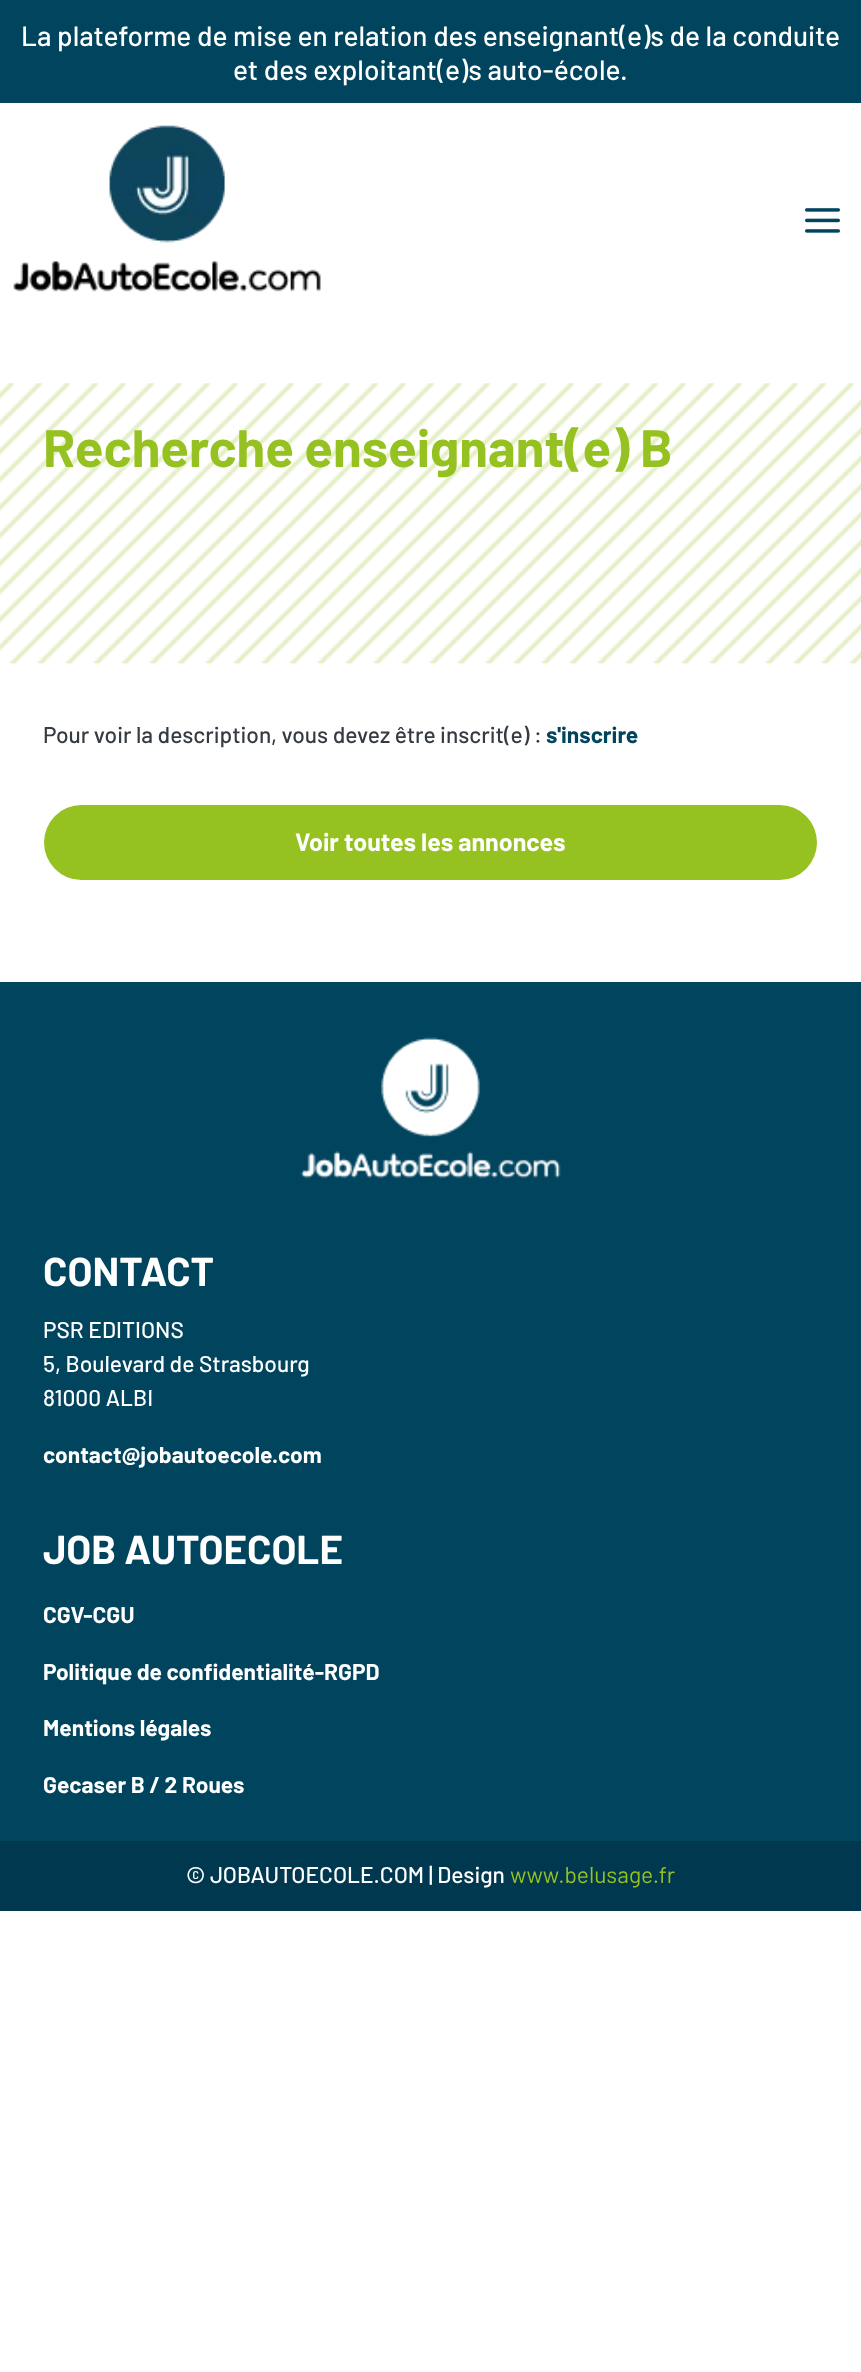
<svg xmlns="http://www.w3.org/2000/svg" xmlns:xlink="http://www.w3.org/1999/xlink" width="861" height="2372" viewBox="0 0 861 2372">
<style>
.cls-1{font:500 28px Barlow;fill:#ffffff}
.cls-2{font:bold 52.5px Barlow;fill:#95c121}
.cls-3{font:500 22.75px Barlow;fill:#353b41}
.cls-4{font:bold 22.75px Barlow;fill:#00445e}
.cls-5{font:bold 25px Barlow;fill:#ffffff}
.cls-6{font:bold 40.25px Barlow;fill:#ffffff}
.cls-7{font:500 22.75px Barlow;fill:#ffffff}
.cls-8{font:bold 22.75px Barlow;fill:#ffffff}
.cls-9{font:22.75px Barlow;fill:#95c121}
</style>
<rect width="100%" height="100%" fill="#ffffff"/>
<rect fill="#00445e" x="0" y="0" width="861" height="103"/>
<image xlink:href="image0.png" x="13" y="125" width="308" height="167"/>
<image xlink:href="image1.png" x="805" y="208" width="35" height="25"/>
<image xlink:href="image2.png" x="0" y="383" width="861" height="281"/>
<rect fill="#95c121" x="44" y="805" width="773" height="75" rx="37.5"/>
<rect fill="#00445e" x="0" y="982" width="861" height="859"/>
<image xlink:href="image3.png" x="300" y="1037" width="261" height="142"/>
<rect fill="#00384f" x="0" y="1841" width="861" height="70"/>
<text class="cls-1" x="21" y="46">La plateforme de mise en relation des enseignant(e)s de la conduite</text>
<text class="cls-1" x="233" y="80">et des exploitant(e)s auto-école.</text>
<text class="cls-2" x="43" y="467">Recherche enseignant(e) B</text>
<text class="cls-3" x="43" y="743">Pour voir la description, vous devez être inscrit(e) :</text>
<text class="cls-4" x="546" y="743">s'inscrire</text>
<text class="cls-5" x="295" y="851">Voir toutes les annonces</text>
<text class="cls-6" x="43" y="1286">CONTACT</text>
<text class="cls-7"><tspan x="43" y="1338">PSR EDITIONS</tspan><tspan x="43" y="1372">5, Boulevard de Strasbourg</tspan><tspan x="43" y="1406">81000 ALBI</tspan></text>
<text class="cls-8" x="43" y="1463">contact@jobautoecole.com</text>
<text class="cls-6" x="43" y="1564">JOB AUTOECOLE</text>
<text class="cls-8" x="43" y="1623">CGV-CGU</text>
<text class="cls-8" x="43" y="1680">Politique de confidentialité-RGPD</text>
<text class="cls-8" x="43" y="1736">Mentions légales</text>
<text class="cls-8" x="43" y="1793">Gecaser B / 2 Roues</text>
<text class="cls-7" x="186" y="1883">© JOBAUTOECOLE.COM | Design</text>
<text class="cls-9" x="510" y="1883">www.belusage.fr</text>
</svg>
